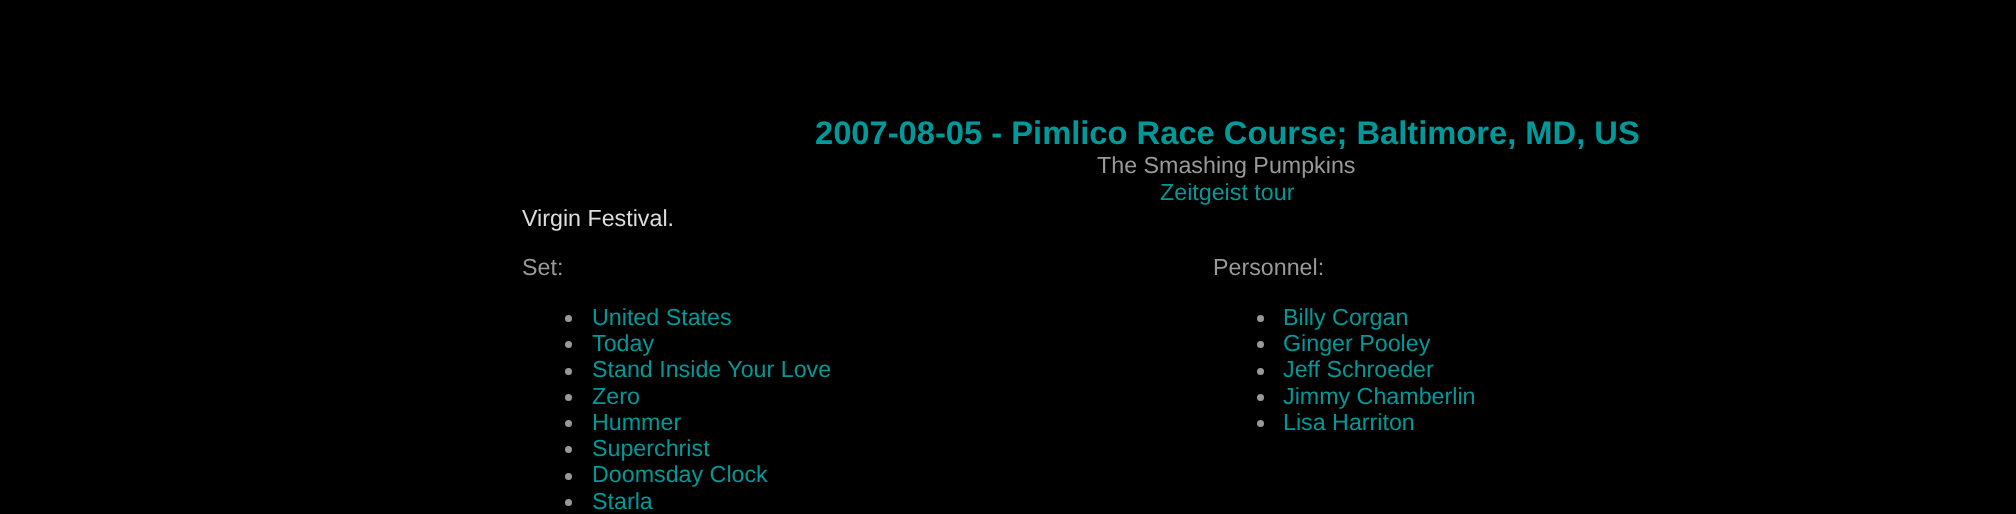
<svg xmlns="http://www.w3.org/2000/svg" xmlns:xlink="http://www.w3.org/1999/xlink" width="2016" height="514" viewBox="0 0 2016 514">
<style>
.cls-1{font:bold 32.7px Liberation Sans;fill:#009999}
.cls-2{font:23.25px Liberation Sans;fill:#999999}
.cls-3{font:23.25px Liberation Sans;fill:#009999}
.cls-4{font:23.25px Liberation Sans;fill:#dddddd}
</style>
<rect width="100%" height="100%" fill="#000000"/>
<circle fill="#999999" cx="568.5" cy="318.5" r="3.5"/>
<circle fill="#999999" cx="568.5" cy="344.5" r="3.5"/>
<circle fill="#999999" cx="568.5" cy="371.5" r="3.5"/>
<circle fill="#999999" cx="568.5" cy="397.5" r="3.5"/>
<circle fill="#999999" cx="568.5" cy="423.5" r="3.5"/>
<circle fill="#999999" cx="568.5" cy="449.5" r="3.5"/>
<circle fill="#999999" cx="568.5" cy="476.5" r="3.5"/>
<circle fill="#999999" cx="568.5" cy="502.5" r="3.5"/>
<circle fill="#999999" cx="1260.5" cy="318.5" r="3.5"/>
<circle fill="#999999" cx="1260.5" cy="344.5" r="3.5"/>
<circle fill="#999999" cx="1260.5" cy="371.5" r="3.5"/>
<circle fill="#999999" cx="1260.5" cy="397.5" r="3.5"/>
<circle fill="#999999" cx="1260.5" cy="423.5" r="3.5"/>
<text class="cls-1" x="815" y="144">2007-08-05 - Pimlico Race Course; Baltimore, MD, US</text>
<text class="cls-2" x="1097" y="173">The Smashing Pumpkins</text>
<text class="cls-3" x="1160" y="200">Zeitgeist tour</text>
<text class="cls-4" x="522" y="226">Virgin Festival.</text>
<text class="cls-2" x="522" y="275">Set:</text>
<text class="cls-3"><tspan x="592" y="325">United States</tspan><tspan x="592" y="351">Today</tspan><tspan x="592" y="377">Stand Inside Your Love</tspan><tspan x="592" y="404">Zero</tspan><tspan x="592" y="430">Hummer</tspan><tspan x="592" y="456">Superchrist</tspan><tspan x="592" y="482">Doomsday Clock</tspan><tspan x="592" y="509">Starla</tspan></text>
<text class="cls-2" x="1213" y="275">Personnel:</text>
<text class="cls-3"><tspan x="1283" y="325">Billy Corgan</tspan><tspan x="1283" y="351">Ginger Pooley</tspan><tspan x="1283" y="377">Jeff Schroeder</tspan><tspan x="1283" y="404">Jimmy Chamberlin</tspan><tspan x="1283" y="430">Lisa Harriton</tspan></text>
</svg>
